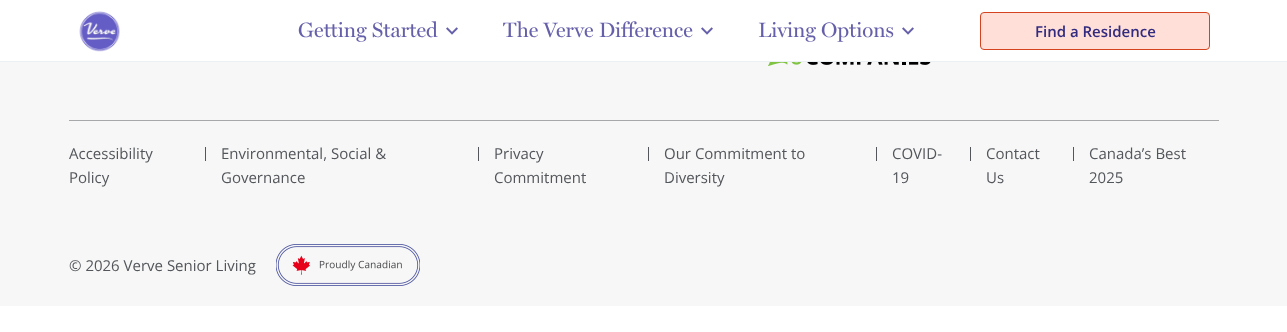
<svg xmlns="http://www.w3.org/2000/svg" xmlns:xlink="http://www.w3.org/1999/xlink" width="1287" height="332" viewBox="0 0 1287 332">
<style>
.cls-1{font:500 21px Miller;fill:#6660aa}
.cls-2{font:600 15px Open Sans;fill:#322b7f}
.cls-3{font:15px Open Sans;fill:#53565a}
</style>
<rect width="100%" height="100%" fill="#ffffff"/>
<rect fill="#ebf0f2" x="0" y="61" width="1287" height="1"/>
<image xlink:href="image0.png" x="79" y="11" width="41" height="41"/>
<image xlink:href="image1.png" x="446" y="27" width="12" height="8"/>
<image xlink:href="image1.png" x="701" y="27" width="12" height="8"/>
<image xlink:href="image1.png" x="902" y="27" width="12" height="8"/>
<rect fill="#ffdfd7" stroke="#d44320" x="980.5" y="12.5" width="229" height="37" rx="3.5"/>
<rect fill="#f7f7f7" x="0" y="62" width="1287" height="244"/>
<image xlink:href="image2.png" x="768" y="62" width="163" height="4"/>
<rect fill="#a7a8a9" x="69" y="120" width="1150" height="1"/>
<rect fill="#53565a" x="205" y="147" width="1" height="14"/>
<rect fill="#53565a" x="478" y="147" width="1" height="14"/>
<rect fill="#53565a" x="648" y="147" width="1" height="14"/>
<rect fill="#53565a" x="876" y="147" width="1" height="14"/>
<rect fill="#53565a" x="970" y="147" width="1" height="14"/>
<rect fill="#53565a" x="1073" y="147" width="1" height="14"/>
<image xlink:href="image3.png" x="276" y="244" width="144" height="42"/>
<text class="cls-1" x="298" y="37">Getting Started</text>
<text class="cls-1" x="503" y="37">The Verve Difference</text>
<text class="cls-1" x="758" y="37">Living Options</text>
<text class="cls-2" x="1035" y="37">Find a Residence</text>
<text class="cls-3"><tspan x="69" y="159">Accessibility</tspan><tspan x="69" y="183">Policy</tspan></text>
<text class="cls-3"><tspan x="221" y="159">Environmental, Social &amp;</tspan><tspan x="221" y="183">Governance</tspan></text>
<text class="cls-3"><tspan x="494" y="159">Privacy</tspan><tspan x="494" y="183">Commitment</tspan></text>
<text class="cls-3"><tspan x="664" y="159">Our Commitment to</tspan><tspan x="664" y="183">Diversity</tspan></text>
<text class="cls-3"><tspan x="892" y="159">COVID-</tspan><tspan x="892" y="183">19</tspan></text>
<text class="cls-3"><tspan x="986" y="159">Contact</tspan><tspan x="986" y="183">Us</tspan></text>
<text class="cls-3"><tspan x="1089" y="159">Canada’s Best</tspan><tspan x="1089" y="183">2025</tspan></text>
<text class="cls-3" x="69" y="271">© 2026 Verve Senior Living</text>
</svg>
